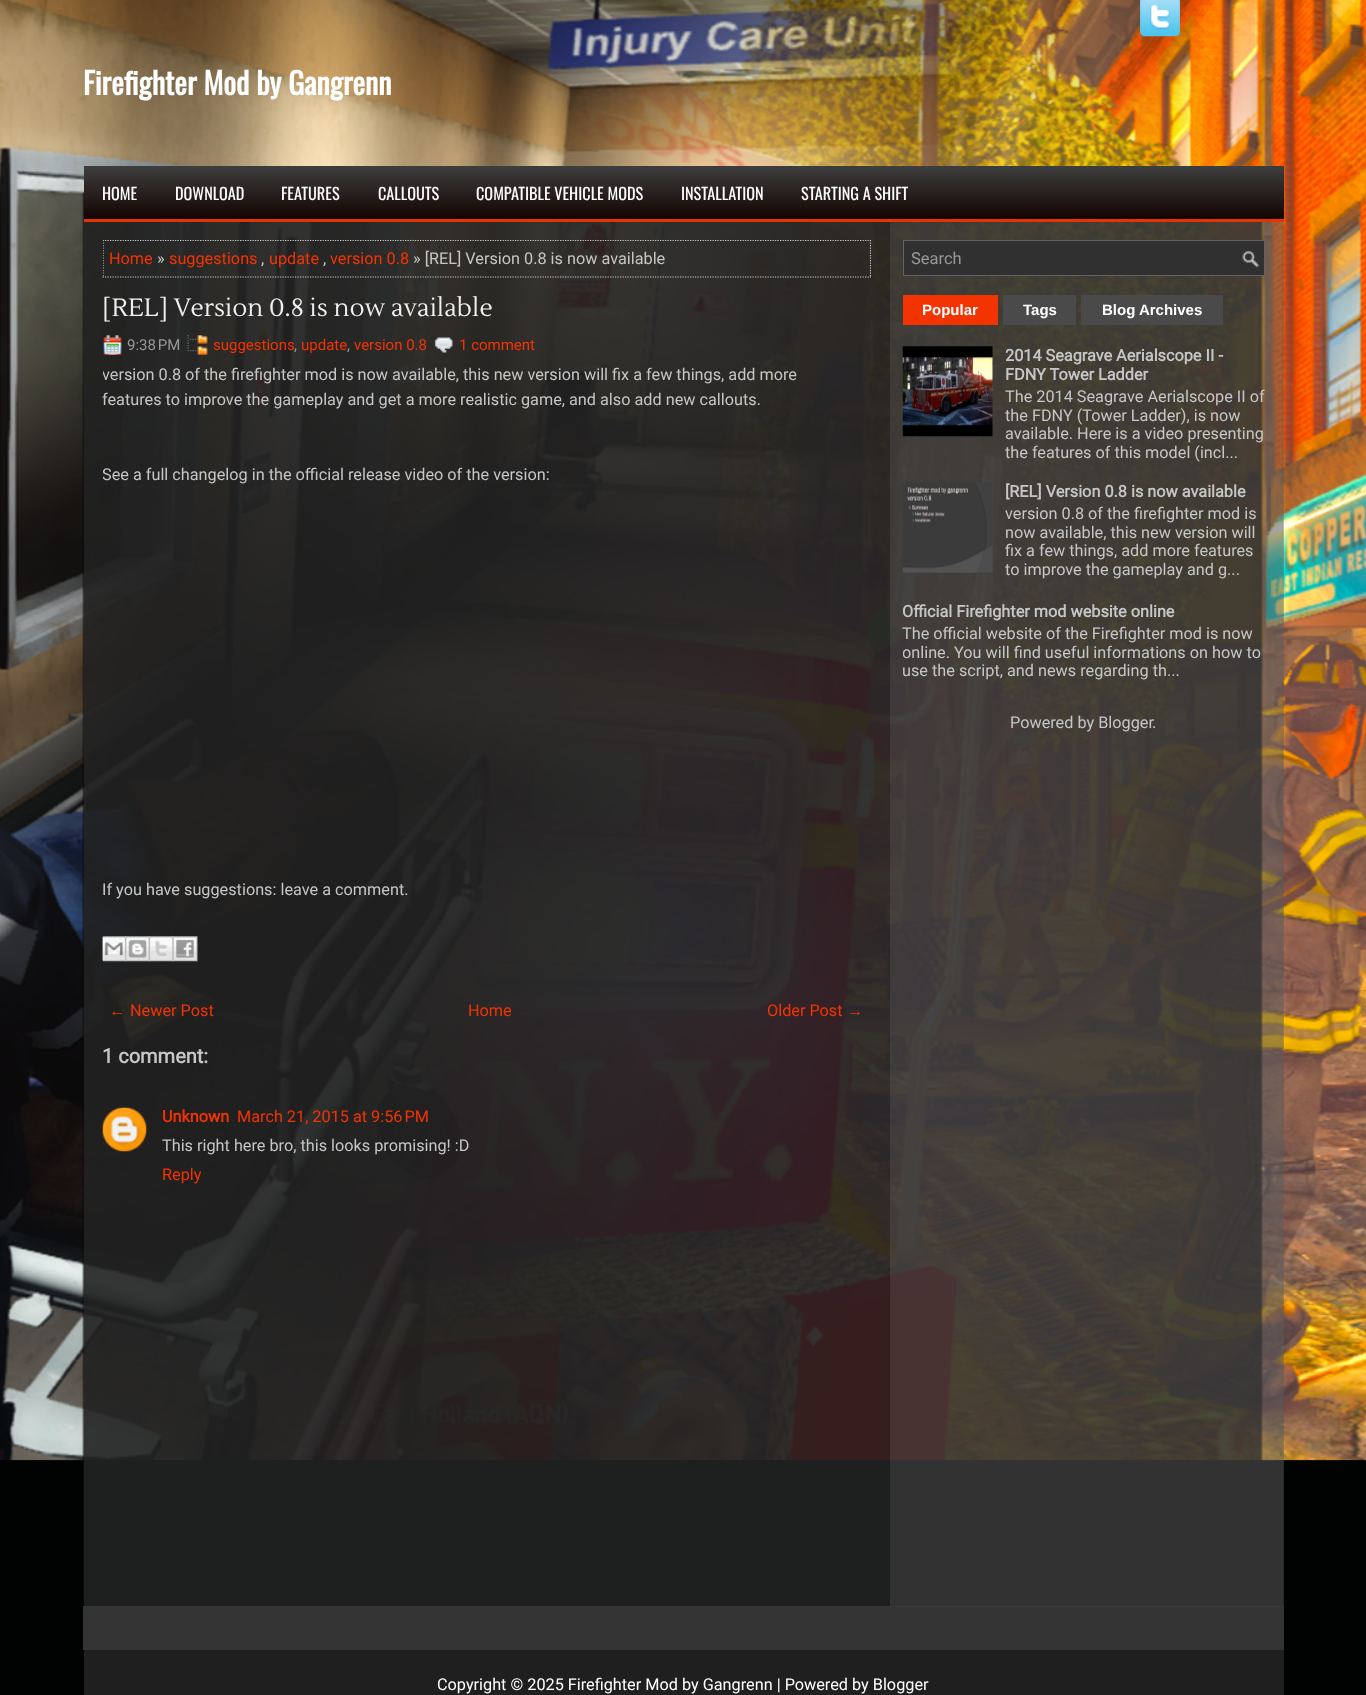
<svg xmlns="http://www.w3.org/2000/svg" xmlns:xlink="http://www.w3.org/1999/xlink" width="1366" height="1695" viewBox="0 0 1366 1695">
<style>
.cls-1{font:bold 30px Oswald;fill:#ffffff}
.cls-2{font:16.25px Oswald;fill:#ffffff}
.cls-3{font:16.25px Roboto;fill:#f43302}
.cls-4{font:16.25px Roboto;fill:#c6c6c6}
.cls-5{font:25px Lustria;fill:#efefef}
.cls-6{font:15px Roboto;fill:#999999}
.cls-7{font:15px Roboto;fill:#f43302}
.cls-8{font:16.25px Liberation Sans;fill:#f43302}
.cls-9{font:bold 20px Roboto;fill:#c6c6c6}
.cls-10{font:bold 16.25px Roboto;fill:#f43302}
.cls-11{font:16.5px Roboto;fill:#999999}
.cls-12{font:bold 15px Liberation Sans;fill:#ffffff}
.cls-13{font:bold 16.25px Roboto;fill:#c6c6c6}
.cls-14{font:16.25px Roboto;fill:#ffffff}
</style>
<defs>
<linearGradient id="g1" gradientUnits="userSpaceOnUse" x1="684" y1="166" x2="684" y2="219"><stop offset="0" stop-color="#3e3e3e"/><stop offset="1" stop-color="#120401"/></linearGradient>
<clipPath id="clip1"><rect x="103" y="240" width="768" height="1329"/></clipPath>
<clipPath id="clip2"><rect x="903" y="240" width="362" height="533"/></clipPath>
</defs>
<rect width="100%" height="100%" fill="#010202"/>
<image xlink:href="image0.png" x="0" y="0" width="1366" height="1461"/>
<image xlink:href="image1.png" x="1140" y="0" width="40" height="37"/>
<rect fill="url(#g1)" x="84" y="166" width="1200" height="53"/>
<image xlink:href="image2.png" x="83" y="221" width="1201" height="1386"/>
<rect fill="#e73204" x="84" y="219" width="1200" height="3"/>
<g clip-path="url(#clip1)">
<path fill="none" stroke="#cccccc" stroke-width="1.2" stroke-dasharray="1.25 1.25" d="M102.5 240.5H871"/>
<path fill="none" stroke="#cccccc" stroke-width="1.2" stroke-dasharray="1.25 1.25" d="M870.5 240V277.5"/>
</g>
<path fill="none" stroke="#cccccc" stroke-width="1.2" stroke-dasharray="1.25 1.25" d="M102.5 277H871"/>
<g clip-path="url(#clip1)">
<path fill="none" stroke="#cccccc" stroke-width="1.2" stroke-dasharray="1.25 1.25" d="M103 240V277.5"/>
</g>
<image xlink:href="image3.png" x="103" y="335" width="19" height="20"/>
<image xlink:href="image4.png" x="187" y="335" width="21" height="20"/>
<image xlink:href="image5.png" x="434" y="337" width="19" height="16"/>
<image xlink:href="image6.png" x="102" y="936" width="25" height="26"/>
<image xlink:href="image7.png" x="125" y="936" width="25" height="26"/>
<image xlink:href="image8.png" x="148" y="936" width="26" height="26"/>
<image xlink:href="image9.png" x="172" y="936" width="26" height="26"/>
<image xlink:href="image10.png" x="102" y="1107" width="45" height="45"/>
<rect fill="#303030" x="904" y="241" width="360" height="34"/>
<image xlink:href="image11.png" x="1242" y="251" width="17" height="17"/>
<rect fill="none" stroke="#636363" x="903.5" y="240.5" width="361" height="35"/>
<rect fill="#f43302" x="903" y="295" width="95" height="30"/>
<rect fill="#4a4a4a" x="1003" y="295" width="73" height="30"/>
<rect fill="#4a4a4a" x="1081" y="295" width="142" height="30"/>
<image xlink:href="image12.png" x="902" y="346" width="91" height="91"/>
<image xlink:href="image13.png" x="902" y="482" width="91" height="91"/>
<rect fill="#5c5c5c" fill-opacity="0.55" x="83" y="1606" width="1201" height="44"/>
<rect fill="#1f1f1f" x="84" y="1650" width="1200" height="45"/>
<text class="cls-1" x="83" y="95">Firefighter Mod by Gangrenn</text>
<text class="cls-2" x="102" y="200">HOME</text>
<text class="cls-2" x="175" y="200">DOWNLOAD</text>
<text class="cls-2" x="281" y="200">FEATURES</text>
<text class="cls-2" x="378" y="200">CALLOUTS</text>
<text class="cls-2" x="476" y="200">COMPATIBLE VEHICLE MODS</text>
<text class="cls-2" x="681" y="200">INSTALLATION</text>
<text class="cls-2" x="801" y="200">STARTING A SHIFT</text>
<text class="cls-3" x="109" y="264">Home</text>
<text class="cls-4" x="157" y="264">»</text>
<text class="cls-3" x="169" y="264">suggestions</text>
<text class="cls-3" x="269" y="264">update</text>
<text class="cls-3" x="330" y="264">version 0.8</text>
<text class="cls-4" x="413" y="264">» [REL] Version 0.8 is now available</text>
<text class="cls-4" x="261" y="264">,</text>
<text class="cls-4" x="323" y="264">,</text>
<text class="cls-5" x="102" y="316">[REL] Version 0.8 is now available</text>
<text class="cls-6" x="127" y="350">9:38 PM</text>
<text class="cls-7" x="213" y="350">suggestions</text>
<text class="cls-6" x="294" y="350">,</text>
<text class="cls-7" x="301" y="350">update</text>
<text class="cls-6" x="347" y="350">,</text>
<text class="cls-7" x="354" y="350">version 0.8</text>
<text class="cls-7" x="459" y="350">1 comment</text>
<g clip-path="url(#clip1)">
<text class="cls-4" x="102" y="380">version 0.8 of the firefighter mod is now available, this new version will fix a few things, add more</text>
</g>
<text class="cls-4" x="102" y="405">features to improve the gameplay and get a more realistic game, and also add new callouts.</text>
<g clip-path="url(#clip1)">
<text class="cls-4" x="102" y="480">See a full changelog in the official release video of the version:</text>
</g>
<text class="cls-4" x="102" y="895">If you have suggestions: leave a comment.</text>
<text class="cls-8" x="109" y="1016">←</text>
<text class="cls-3" x="130" y="1016">Newer Post</text>
<text class="cls-3" x="468" y="1016">Home</text>
<text class="cls-3" x="767" y="1016">Older Post</text>
<text class="cls-8" x="847" y="1016">→</text>
<text class="cls-9" x="102" y="1063">1 comment:</text>
<text class="cls-10" x="162" y="1122">Unknown</text>
<text class="cls-3" x="237" y="1122">March 21, 2015 at 9:56 PM</text>
<text class="cls-4" x="162" y="1151">This right here bro, this looks promising! :D</text>
<text class="cls-3" x="162" y="1180">Reply</text>
<text class="cls-11" x="911" y="264">Search</text>
<text class="cls-12" x="922" y="315">Popular</text>
<text class="cls-12" x="1023" y="315">Tags</text>
<text class="cls-12" x="1102" y="315">Blog Archives</text>
<text class="cls-13"><tspan x="1005" y="361">2014 Seagrave Aerialscope II -</tspan><tspan x="1005" y="380">FDNY Tower Ladder</tspan></text>
<text class="cls-4"><tspan x="1005" y="402">The 2014 Seagrave Aerialscope II of</tspan><tspan x="1005" y="421">the FDNY (Tower Ladder), is now</tspan><tspan x="1005" y="439">available. Here is a video presenting</tspan><tspan x="1005" y="458">the features of this model (incl...</tspan></text>
<text class="cls-13" x="1005" y="497">[REL] Version 0.8 is now available</text>
<text class="cls-4"><tspan x="1005" y="519">version 0.8 of the firefighter mod is</tspan><tspan x="1005" y="538">now available, this new version will</tspan><tspan x="1005" y="556">fix a few things, add more features</tspan><tspan x="1005" y="575">to improve the gameplay and g...</tspan></text>
<g clip-path="url(#clip2)">
<text class="cls-13" x="902" y="617">Official Firefighter mod website online</text>
</g>
<text class="cls-4" x="902" y="639">The official website of the Firefighter mod is now</text>
<g clip-path="url(#clip2)">
<text class="cls-4" x="902" y="658">online. You will find useful informations on how to</text>
</g>
<text class="cls-4" x="902" y="676">use the script, and news regarding th...</text>
<text class="cls-4" x="1010" y="728">Powered by Blogger</text>
<text class="cls-4" x="1152" y="728">.</text>
<text class="cls-14" x="437" y="1690">Copyright © 2025 Firefighter Mod by Gangrenn | Powered by Blogger</text>
</svg>
